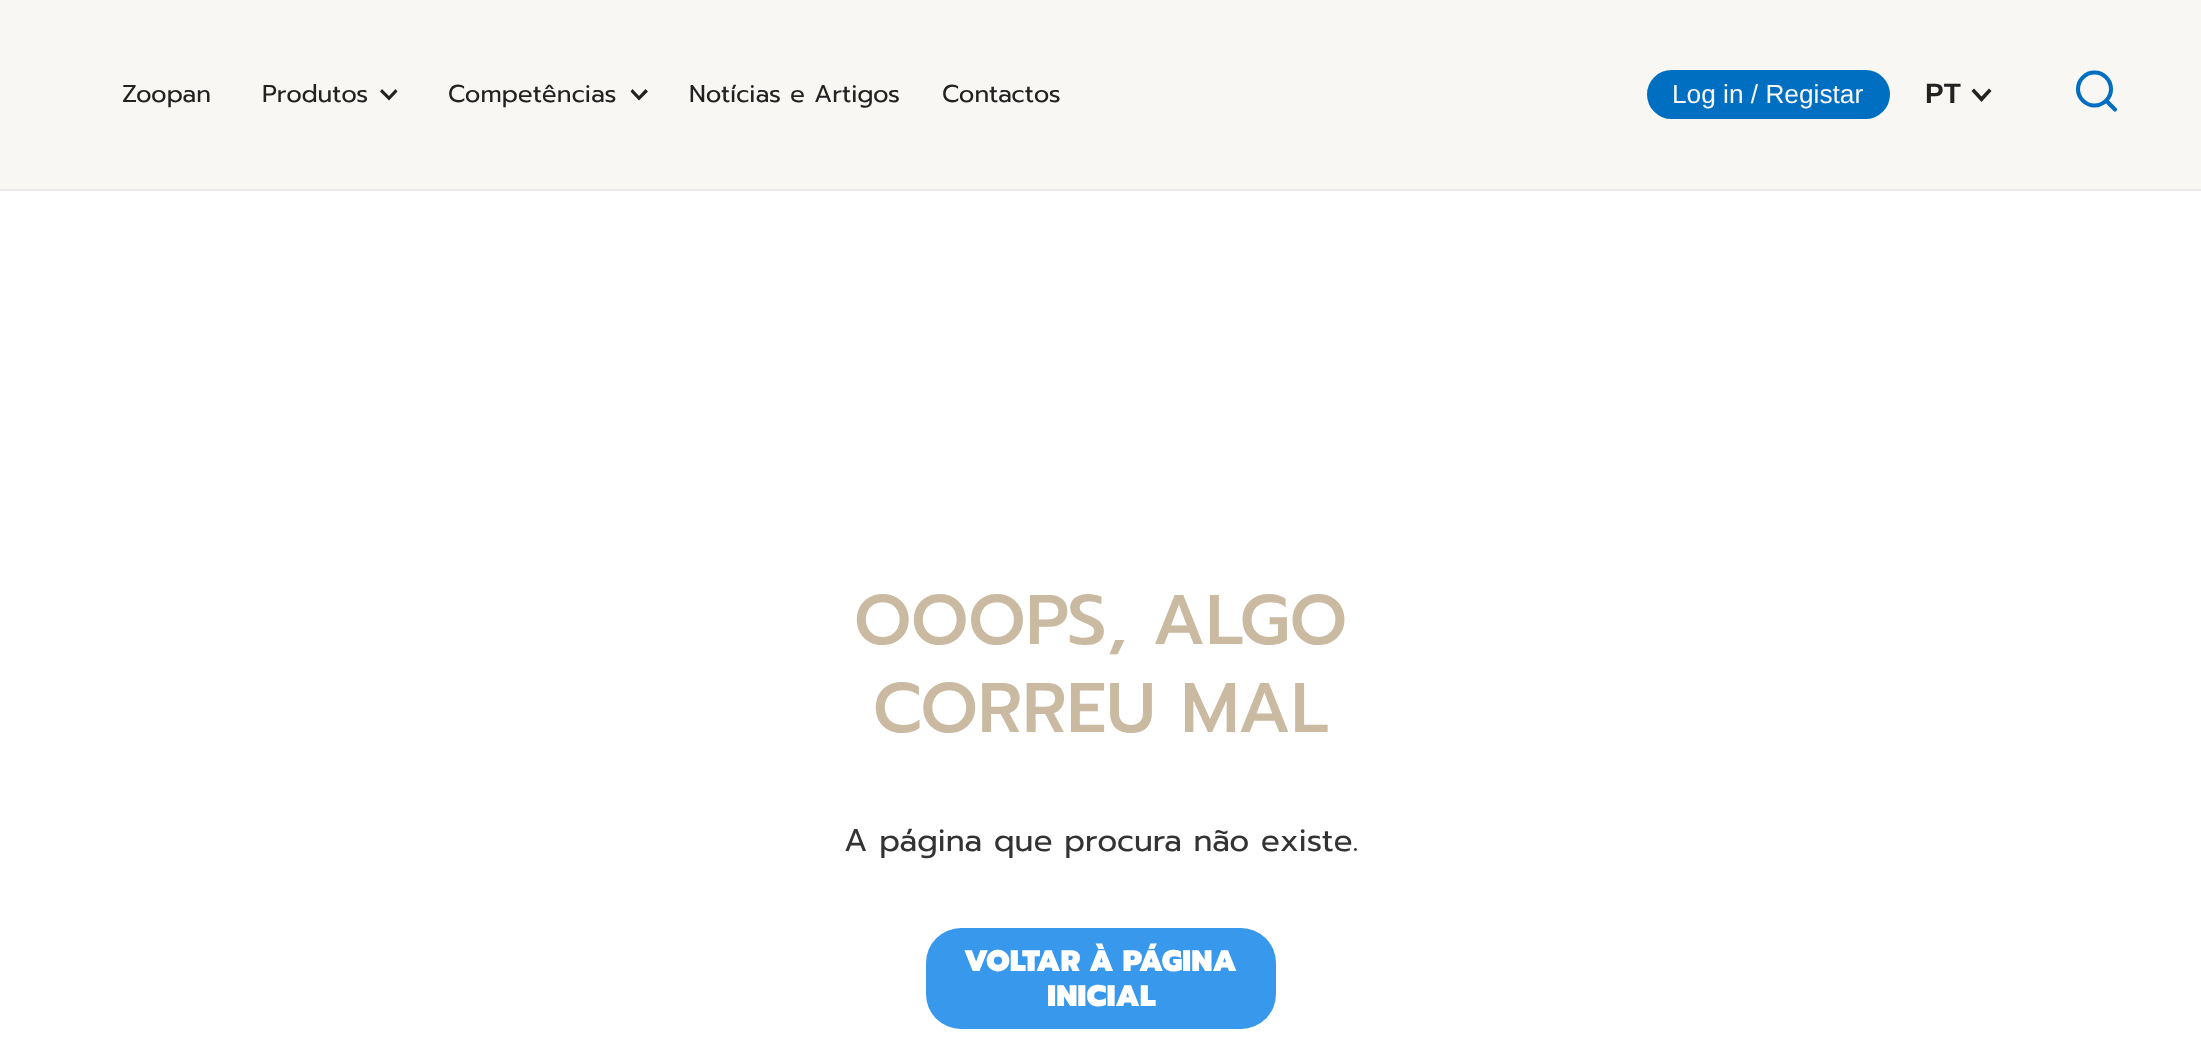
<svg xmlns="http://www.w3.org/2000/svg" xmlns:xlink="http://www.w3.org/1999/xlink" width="2201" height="1063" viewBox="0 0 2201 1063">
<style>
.cls-1{font:24.5px Prompt;fill:#222222}
.cls-2{font:26.25px Liberation Sans;fill:#f9f7f4}
.cls-3{font:bold 28px Liberation Sans;fill:#222222}
.cls-4{font:500 70px Prompt;fill:#c9baa1}
.cls-5{font:31.5px Prompt;fill:#333333}
.cls-6{font:900 29.75px Prompt;fill:#ffffff}
</style>
<rect width="100%" height="100%" fill="#ffffff"/>
<rect fill="#f9f7f4" x="0" y="0" width="2201" height="189"/>
<rect fill="#eceae8" x="0" y="189" width="2201" height="2"/>
<path fill="#222222" d="M395.5 89L389 96L382 89L380 91.5L389 100.5L397.5 91.5Z"/>
<path fill="#222222" d="M645.5 89L639 96L632.5 89L630.5 91.5L639 100.5L648 91.5Z"/>
<rect fill="#006fc1" x="1647" y="70" width="243" height="49" rx="24.5"/>
<path fill="#222222" d="M1989 88.5L1981.5 96.5L1974 88.5L1971.5 91L1981.5 102L1991.5 91Z"/>
<path fill="none" stroke="#006fc1" stroke-width="4.1" stroke-linecap="round" stroke-linejoin="round" d="M2115 109.5L2106 100.5M2111 89C2111 98 2103.5 105.5 2094.5 105.5C2085.5 105.5 2078 98 2078 89C2078 80 2085.5 72.5 2094.5 72.5C2103.5 72.5 2111 80 2111 89Z"/>
<rect fill="#3898ec" x="926" y="928" width="350" height="101" rx="35"/>
<text class="cls-1" x="122" y="102">Zoopan</text>
<text class="cls-1" x="262" y="102">Produtos</text>
<text class="cls-1" x="448" y="102">Competências</text>
<text class="cls-1" x="689" y="102">Notícias e Artigos</text>
<text class="cls-1" x="942" y="102">Contactos</text>
<text class="cls-2" x="1672" y="103">Log in / Registar</text>
<text class="cls-3" x="1925" y="103">PT</text>
<text class="cls-4" x="854" y="644">OOOPS, ALGO</text>
<text class="cls-4" x="873" y="732">CORREU MAL</text>
<text class="cls-5" x="844" y="851">A página que procura não existe.</text>
<text class="cls-6" x="964" y="971">VOLTAR À PÁGINA</text>
<text class="cls-6" x="1047" y="1006">INICIAL</text>
</svg>
